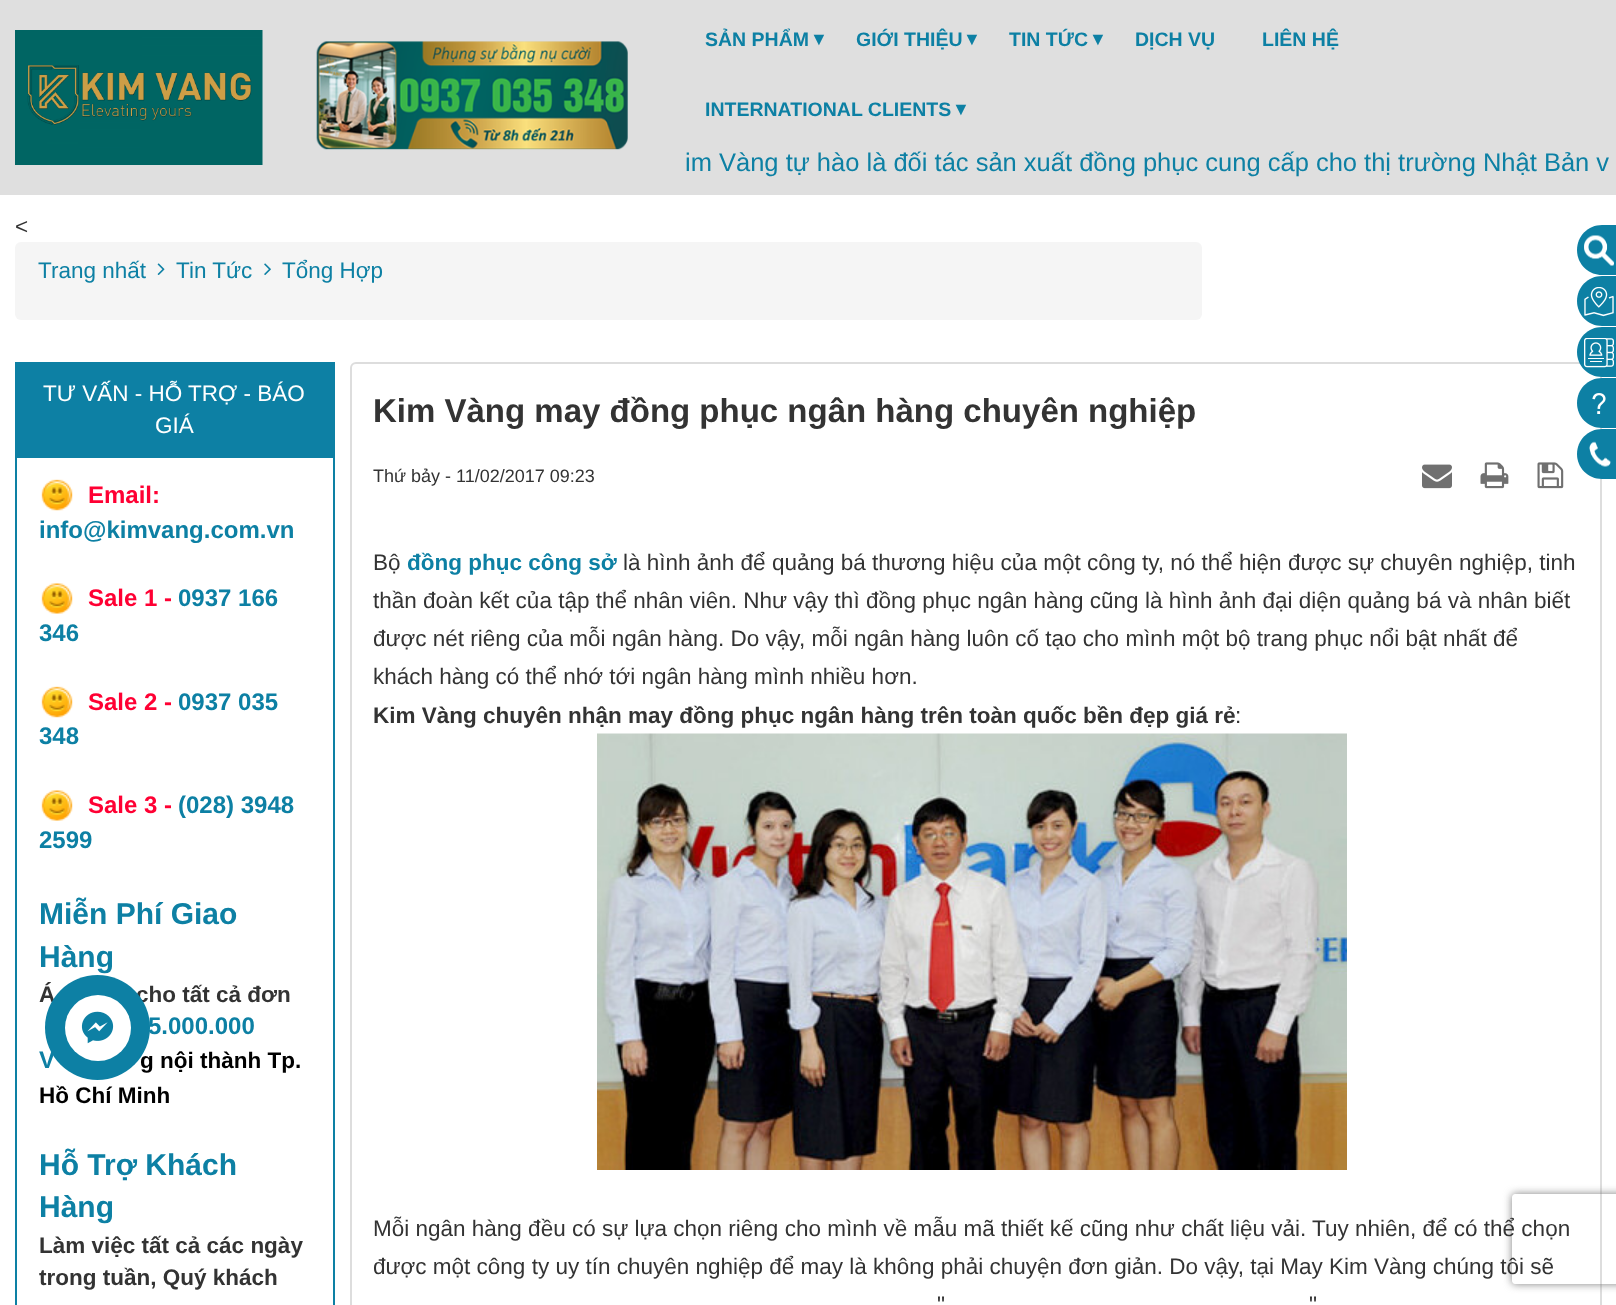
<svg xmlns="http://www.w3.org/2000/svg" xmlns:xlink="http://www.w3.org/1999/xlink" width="1616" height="1305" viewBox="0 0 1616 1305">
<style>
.cls-1{font:bold 19.5px Liberation Sans;fill:#0d80a4}
.cls-2{font:italic 18px Liberation Sans;fill:#0d80a4}
.cls-3{font:25.5px Liberation Sans;fill:#0d80a4}
.cls-4{font:22.5px Liberation Sans;fill:#333333}
.cls-5{font:22.5px Liberation Sans;fill:#0d80a4}
.cls-6{font:22.5px Liberation Sans;fill:#ffffff}
.cls-7{font:bold 24px Liberation Sans;fill:#ff0033}
.cls-8{font:bold 24px Liberation Sans;fill:#0d80a4}
.cls-9{font:bold 30px Liberation Sans;fill:#0d80a4}
.cls-10{font:bold 22.5px Liberation Sans;fill:#333333}
.cls-11{font:bold 22.5px Liberation Sans;fill:#000000}
.cls-12{font:bold 33px Liberation Sans;fill:#333333}
.cls-13{font:18px Liberation Sans;fill:#333333}
.cls-14{font:bold 22.5px Liberation Sans;fill:#0d80a4}
</style>
<defs>
<clipPath id="clip1"><path d="M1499 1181H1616V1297H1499ZM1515 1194H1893C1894.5 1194 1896 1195.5 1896 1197V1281C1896 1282.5 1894.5 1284 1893 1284H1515C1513.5 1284 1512 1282.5 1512 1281V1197C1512 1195.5 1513.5 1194 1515 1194Z" clip-rule="evenodd"/></clipPath>
<clipPath id="clip2"><rect x="374" y="543" width="1204" height="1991"/></clipPath>
</defs>
<rect width="100%" height="100%" fill="#dfdfdf"/>
<image xlink:href="image0.png" x="15" y="30" width="248" height="135"/>
<image xlink:href="image1.png" x="316" y="41" width="312" height="109"/>
<rect fill="#ffffff" x="0" y="195" width="1616" height="1110"/>
<rect fill="#f5f5f5" x="15" y="242" width="1187" height="78" rx="6"/>
<image xlink:href="image2.png" x="157" y="263" width="8" height="12"/>
<image xlink:href="image3.png" x="264" y="263" width="7" height="12"/>
<rect fill="none" stroke="#0d80a4" stroke-width="2" x="16" y="363" width="318" height="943"/>
<rect fill="#0d80a4" x="17" y="364" width="316" height="94"/>
<image xlink:href="image4.png" x="41" y="479" width="32" height="32"/>
<image xlink:href="image5.png" x="41" y="583" width="32" height="31"/>
<image xlink:href="image4.png" x="41" y="686" width="32" height="32"/>
<image xlink:href="image5.png" x="41" y="790" width="32" height="31"/>
<rect fill="none" stroke="#dddddd" stroke-width="2" x="351" y="363" width="1250" height="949" rx="5"/>
<image xlink:href="image6.png" x="1422" y="464" width="30" height="25"/>
<image xlink:href="image7.png" x="1480" y="462" width="29" height="27"/>
<image xlink:href="image8.png" x="1537" y="462" width="27" height="27"/>
<image xlink:href="image9.png" x="597" y="733" width="750" height="437"/>
<path fill="#0d80a4" d="M1602 225H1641V275H1602C1588 275 1577 264 1577 250C1577 236 1588 225 1602 225Z"/>
<image xlink:href="image10.png" x="1584" y="235" width="30" height="31"/>
<path fill="#0d80a4" d="M1602 276H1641V326H1602C1588 326 1577 315 1577 301C1577 287 1588 276 1602 276Z"/>
<image xlink:href="image11.png" x="1584" y="287" width="30" height="30"/>
<path fill="#0d80a4" d="M1602 327H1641V377H1602C1588 377 1577 366 1577 352C1577 338 1588 327 1602 327Z"/>
<image xlink:href="image12.png" x="1584" y="338" width="30" height="30"/>
<path fill="#0d80a4" d="M1602 378H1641V428H1602C1588 428 1577 417 1577 403C1577 389 1588 378 1602 378Z"/>
<image xlink:href="image13.png" x="1592" y="393" width="14" height="21"/>
<path fill="#0d80a4" d="M1602 429H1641V479H1602C1588 479 1577 468 1577 454C1577 440 1588 429 1602 429Z"/>
<image xlink:href="image14.png" x="1589" y="441" width="22" height="26"/>
<g clip-path="url(#clip1)">
<rect fill="#808080" filter="blur(4px)" x="1512" y="1194" width="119" height="90" rx="3"/>
</g>
<text class="cls-1" x="705" y="46">SẢN PHẨM</text>
<text class="cls-2" x="810" y="45">▼</text>
<text class="cls-1" x="856" y="46">GIỚI THIỆU</text>
<text class="cls-2" x="963" y="45">▼</text>
<text class="cls-1" x="1009" y="46">TIN TỨC</text>
<text class="cls-2" x="1089" y="45">▼</text>
<text class="cls-1" x="1135" y="46">DỊCH VỤ</text>
<text class="cls-1" x="1262" y="46">LIÊN HỆ</text>
<text class="cls-1" x="705" y="116">INTERNATIONAL CLIENTS</text>
<text class="cls-2" x="952" y="115">▼</text>
<text class="cls-3" x="685" y="171">im Vàng tự hào là đối tác sản xuất đồng phục cung cấp cho thị trường Nhật Bản v</text>
<text class="cls-4" x="15" y="234">&lt;</text>
<text class="cls-5" x="38" y="278">Trang nhất</text>
<text class="cls-5" x="176" y="278">Tin Tức</text>
<text class="cls-5" x="282" y="278">Tổng Hợp</text>
<text class="cls-6" x="43" y="401">TƯ VẤN - HỖ TRỢ - BÁO</text>
<text class="cls-6" x="155" y="433">GIÁ</text>
<text class="cls-7" x="88" y="503">Email:</text>
<text class="cls-8" x="39" y="538">info@kimvang.com.vn</text>
<text class="cls-7" x="88" y="606">Sale 1 -</text>
<text class="cls-8" x="178" y="606">0937 166</text>
<text class="cls-8" x="39" y="641">346</text>
<text class="cls-7" x="88" y="710">Sale 2 -</text>
<text class="cls-8" x="178" y="710">0937 035</text>
<text class="cls-8" x="39" y="744">348</text>
<text class="cls-7" x="88" y="813">Sale 3 -</text>
<text class="cls-8" x="178" y="813">(028) 3948</text>
<text class="cls-8" x="39" y="848">2599</text>
<text class="cls-9"><tspan x="39" y="924">Miễn Phí Giao</tspan><tspan x="39" y="967">Hàng</tspan></text>
<text class="cls-10" x="39" y="1002">Á</text>
<text class="cls-10" x="136" y="1002">cho tất cả đơn</text>
<text class="cls-8" x="148" y="1034">5.000.000</text>
<text class="cls-8" x="39" y="1068">V</text>
<text class="cls-11" x="140" y="1068">g nội thành Tp.</text>
<text class="cls-11" x="39" y="1103">Hồ Chí Minh</text>
<text class="cls-9"><tspan x="39" y="1175">Hỗ Trợ Khách</tspan><tspan x="39" y="1217">Hàng</tspan></text>
<text class="cls-10"><tspan x="39" y="1253">Làm việc tất cả các ngày</tspan><tspan x="39" y="1285">trong tuần, Quý khách</tspan></text>
<text class="cls-12" x="373" y="422">Kim Vàng may đồng phục ngân hàng chuyên nghiệp</text>
<text class="cls-13" x="373" y="482">Thứ bảy - 11/02/2017 09:23</text>
<text class="cls-4" x="373" y="570">Bộ</text>
<text class="cls-14" x="407" y="570">đồng phục công sở</text>
<text class="cls-4" x="623" y="570">là hình ảnh để quảng bá thương hiệu của một công ty, nó thể hiện được sự chuyên nghiệp, tinh</text>
<text class="cls-4" x="373" y="608">thần đoàn kết của tập thể nhân viên. Như vậy thì đồng phục ngân hàng cũng là hình ảnh đại diện quảng bá và nhân biết</text>
<g clip-path="url(#clip2)">
<text class="cls-4" x="373" y="646">được nét riêng của mỗi ngân hàng. Do vậy, mỗi ngân hàng luôn cố tạo cho mình một bộ trang phục nổi bật nhất để</text>
</g>
<text class="cls-4" x="373" y="684">khách hàng có thể nhớ tới ngân hàng mình nhiều hơn.</text>
<text class="cls-10" x="373" y="723">Kim Vàng chuyên nhận may đồng phục ngân hàng trên toàn quốc bền đẹp giá rẻ</text>
<text class="cls-4" x="1235" y="723">:</text>
<text class="cls-4" x="373" y="1236">Mỗi ngân hàng đều có sự lựa chọn riêng cho mình về mẫu mã thiết kế cũng như chất liệu vải. Tuy nhiên, để có thể chọn</text>
<g clip-path="url(#clip2)">
<text class="cls-4" x="373" y="1274">được một công ty uy tín chuyên nghiệp để may là không phải chuyện đơn giản. Do vậy, tại May Kim Vàng chúng tôi sẽ</text>
</g>
<text class="cls-4" x="937" y="1312">"</text>
<text class="cls-4" x="1309" y="1312">"</text>
<circle fill="#0d80a4" cx="97.5" cy="1027.5" r="52.5"/>
<circle fill="#ffffff" cx="98" cy="1028" r="33"/>
<image xlink:href="image15.png" x="81" y="1011" width="33" height="33"/>
</svg>
